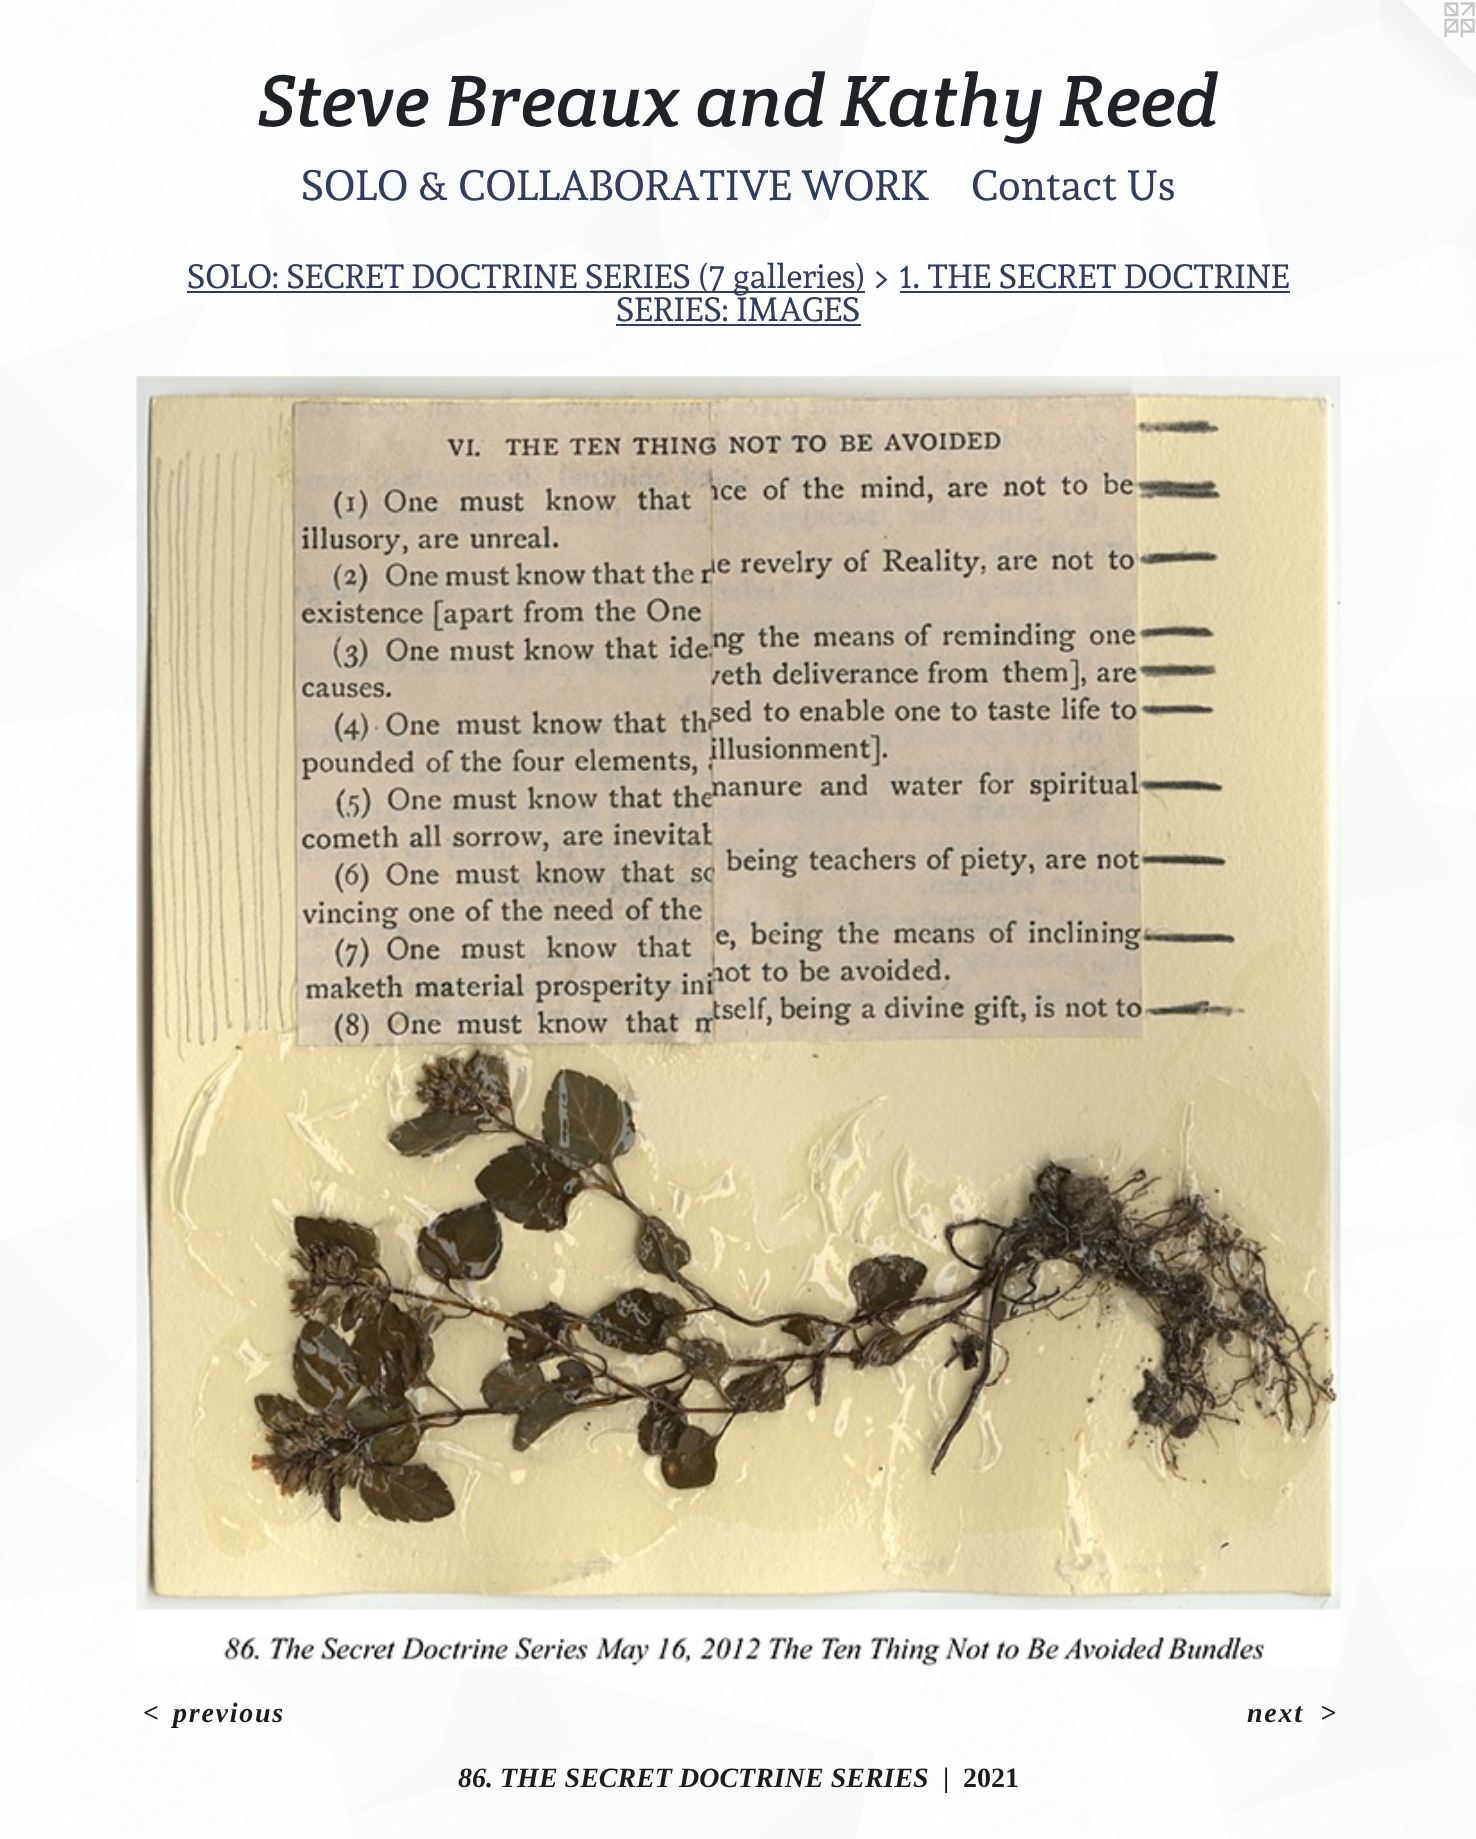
<svg xmlns="http://www.w3.org/2000/svg" xmlns:xlink="http://www.w3.org/1999/xlink" width="1476" height="1839" viewBox="0 0 1476 1839">
<style>
.cls-1{font:italic 73.5px Crete Round;fill:#1f2328}
.cls-2{font:42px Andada;fill:#323c5d}
.cls-3{font:33.25px Andada;fill:#323c5d}
.cls-4{font:italic bold 28px Liberation Serif;letter-spacing:1.75px;fill:#1d1b1b}
.cls-5{font:italic bold 28px Liberation Serif;fill:#1d1b1b}
.cls-6{font:bold 28px Liberation Serif;fill:#1d1b1b}
</style>
<rect width="100%" height="100%" fill="#ffffff"/>
<image xlink:href="image0.png" x="0" y="0" width="1476" height="1839"/>
<image xlink:href="image1.png" x="1379" y="0" width="97" height="97"/>
<rect fill="#323c5d" x="187" y="291" width="678" height="2"/>
<rect fill="#323c5d" x="900" y="291" width="390" height="2"/>
<rect fill="#323c5d" x="616" y="324" width="245" height="2"/>
<image xlink:href="image2.png" x="136" y="376" width="1205" height="1290"/>
<text class="cls-1" x="258" y="126">Steve Breaux and Kathy Reed</text>
<text class="cls-2" x="301" y="200">SOLO &amp; COLLABORATIVE WORK</text>
<text class="cls-2" x="971" y="200">Contact Us</text>
<text class="cls-3" x="187" y="288">SOLO: SECRET DOCTRINE SERIES (7 galleries) &gt; 1. THE SECRET DOCTRINE</text>
<text class="cls-3" x="616" y="321">SERIES: IMAGES</text>
<text class="cls-4" x="143" y="1722">&lt;</text>
<text class="cls-4" x="173" y="1722">previous</text>
<text class="cls-4" x="1247" y="1722">next</text>
<text class="cls-4" x="1320" y="1722">&gt;</text>
<text class="cls-5" x="458" y="1787">86. THE SECRET DOCTRINE SERIES</text>
<text class="cls-6" x="943" y="1787">|</text>
<text class="cls-6" x="963" y="1787">2021</text>
</svg>
